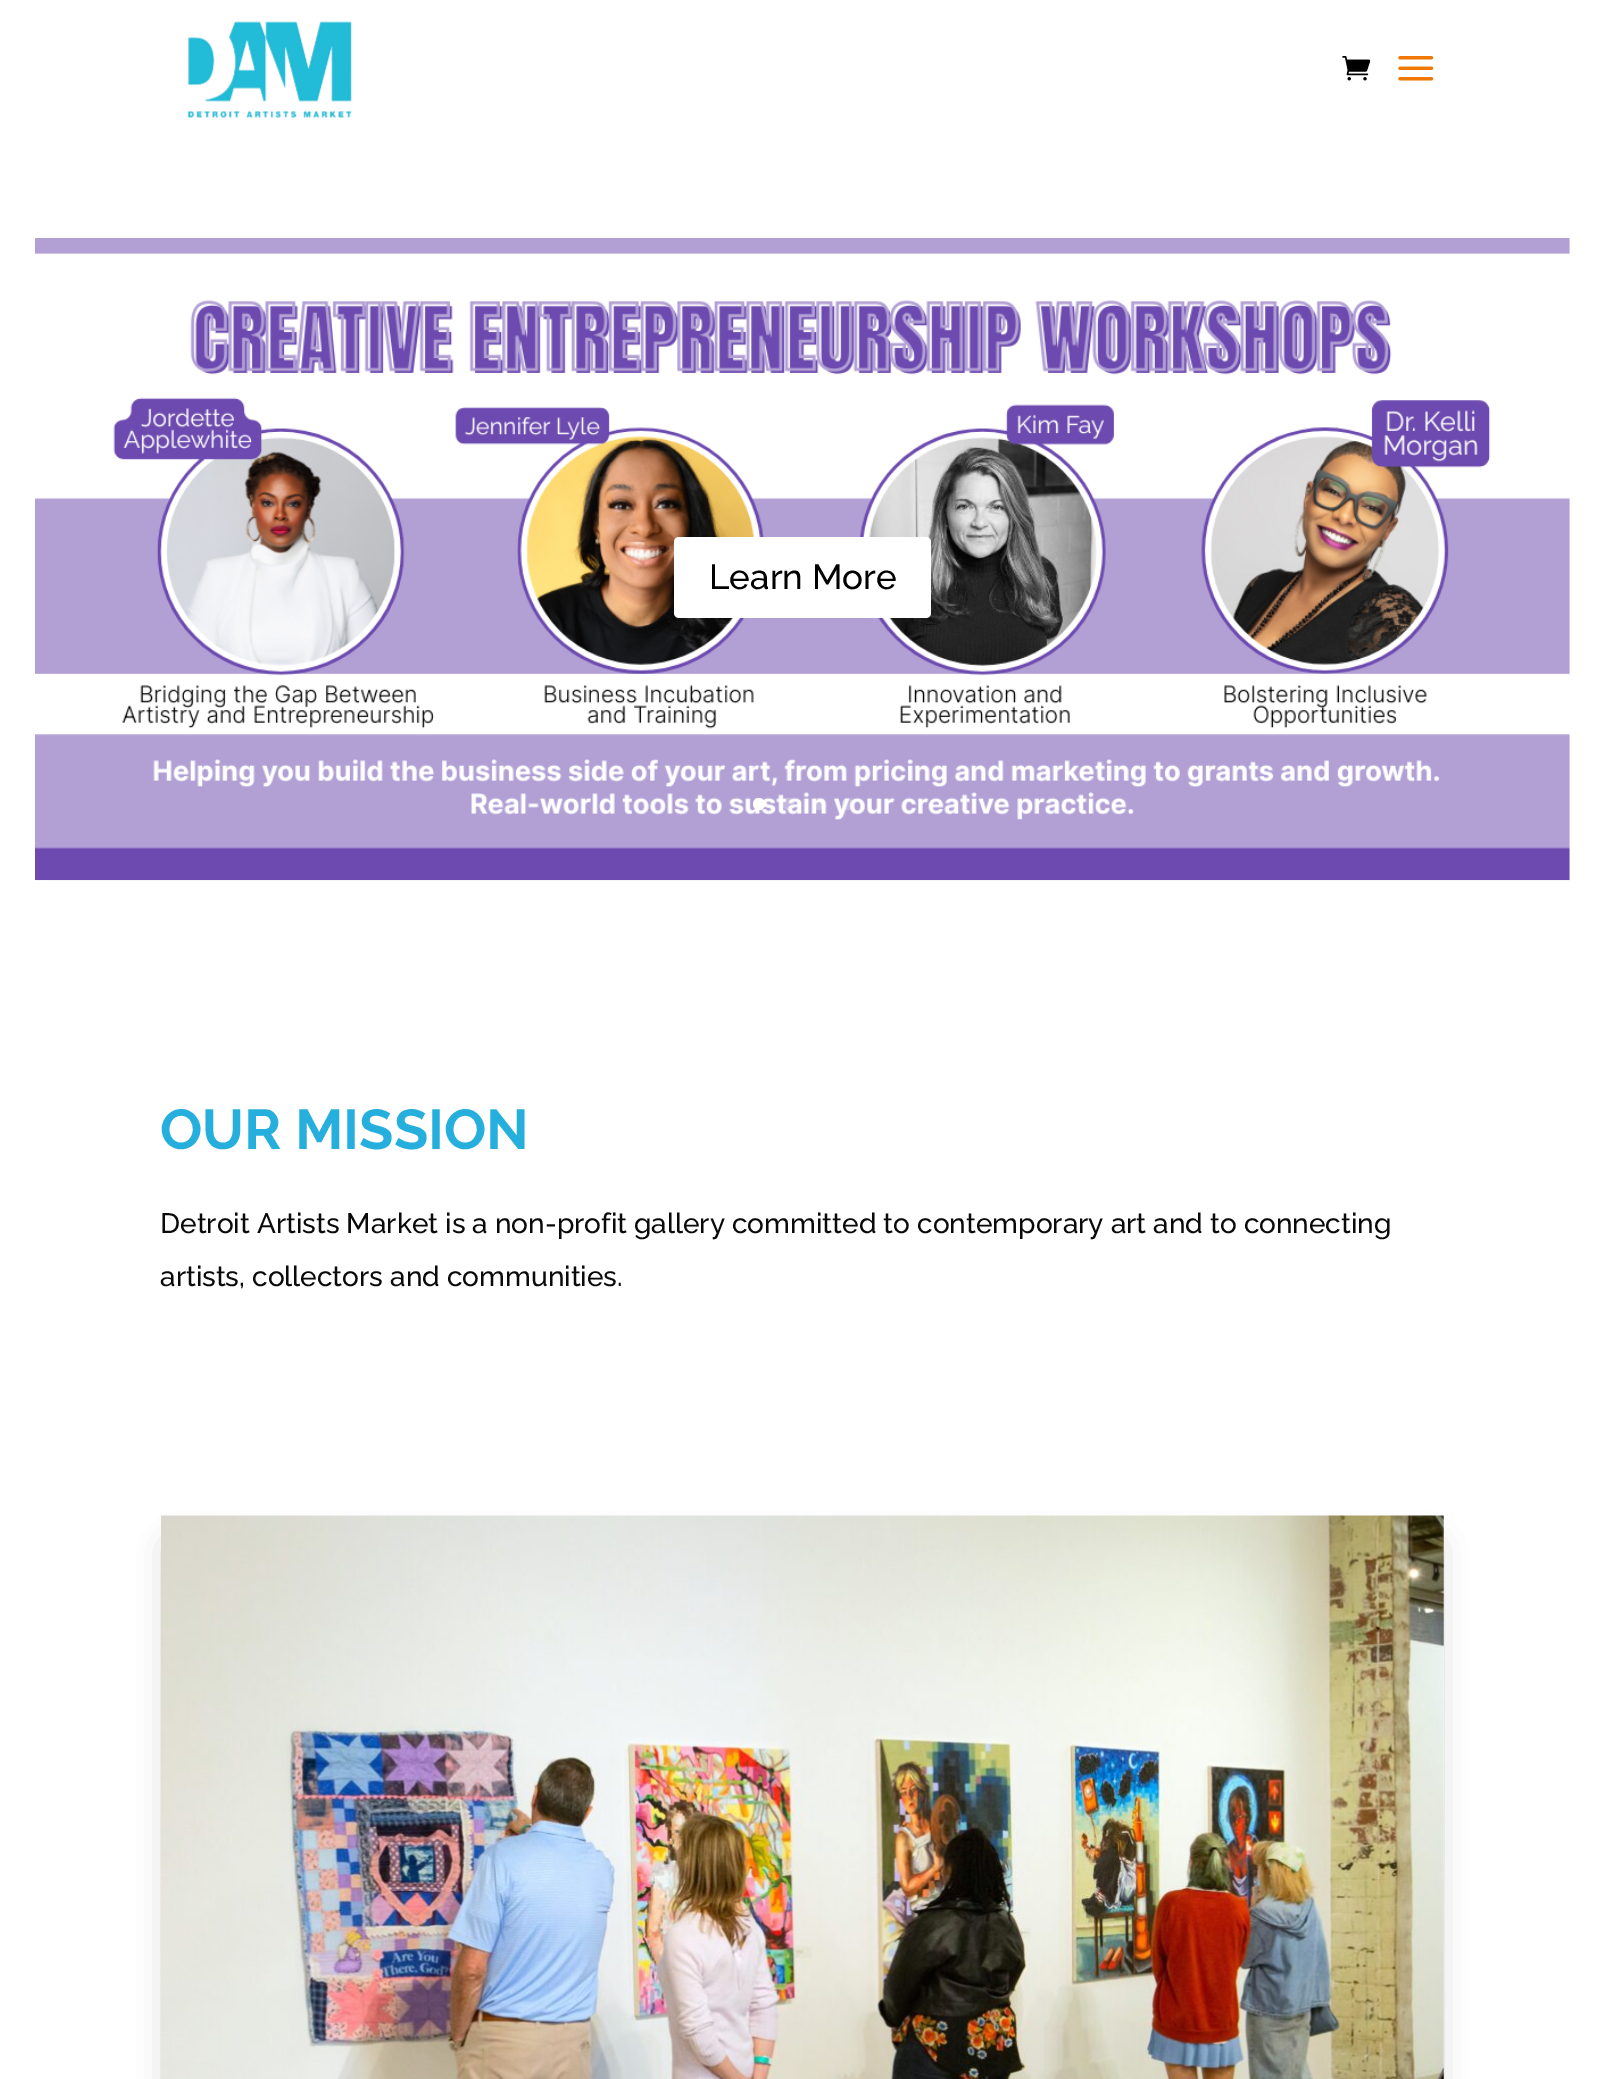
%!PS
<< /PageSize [1604 2079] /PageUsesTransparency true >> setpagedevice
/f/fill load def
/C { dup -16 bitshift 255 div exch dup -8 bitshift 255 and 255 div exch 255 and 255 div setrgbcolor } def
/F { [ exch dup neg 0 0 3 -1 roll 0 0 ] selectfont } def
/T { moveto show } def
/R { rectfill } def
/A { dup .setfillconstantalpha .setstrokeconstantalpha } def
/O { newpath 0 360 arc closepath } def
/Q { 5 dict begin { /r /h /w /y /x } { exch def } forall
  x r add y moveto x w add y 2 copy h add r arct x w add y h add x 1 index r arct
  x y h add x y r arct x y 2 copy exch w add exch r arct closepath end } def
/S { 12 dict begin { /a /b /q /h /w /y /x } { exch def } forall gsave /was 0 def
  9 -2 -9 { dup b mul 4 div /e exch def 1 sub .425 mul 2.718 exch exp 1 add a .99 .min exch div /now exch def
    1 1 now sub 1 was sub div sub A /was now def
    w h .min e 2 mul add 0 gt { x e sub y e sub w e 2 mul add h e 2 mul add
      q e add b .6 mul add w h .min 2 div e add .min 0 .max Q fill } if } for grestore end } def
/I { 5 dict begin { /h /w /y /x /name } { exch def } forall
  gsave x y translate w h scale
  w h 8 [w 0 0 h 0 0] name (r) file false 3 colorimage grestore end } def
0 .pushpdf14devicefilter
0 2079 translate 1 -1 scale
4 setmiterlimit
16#FFFFFF C
0 0 1604 2079 R
(1.rgb) 188 21 164 97 I
(2.rgb) 1342 56 29 25 I
(3.rgb) 1398 56 36 25 I
(4.rgb) 35 238 1535 643 I
674 537 257 81 5 Q f
/Raleway-Medium 35 F
16#000000 C
(Learn More) 709 589 T
16#FFFFFF C
759 804 6 O f
0.25 A
782 798 13 12 6 Q f
818 804 6 O f
848 804 6 O f
/Raleway-Bold 56 F
1 A
16#26AFDC C
(OUR MISSION) 160 1149 T
/Raleway-Medium 28 F
16#0A0A0A C
(Detroit Artists Market is a non-profit gallery committed to contemporary art and to connecting) 160 1233 T
(artists, collectors and communities.) 160 1286 T
16#000000 C
172 1547 1261 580 0 16 .3 S
(5.rgb) 161 1515 1283 564 I
.poppdf14devicefilter showpage
